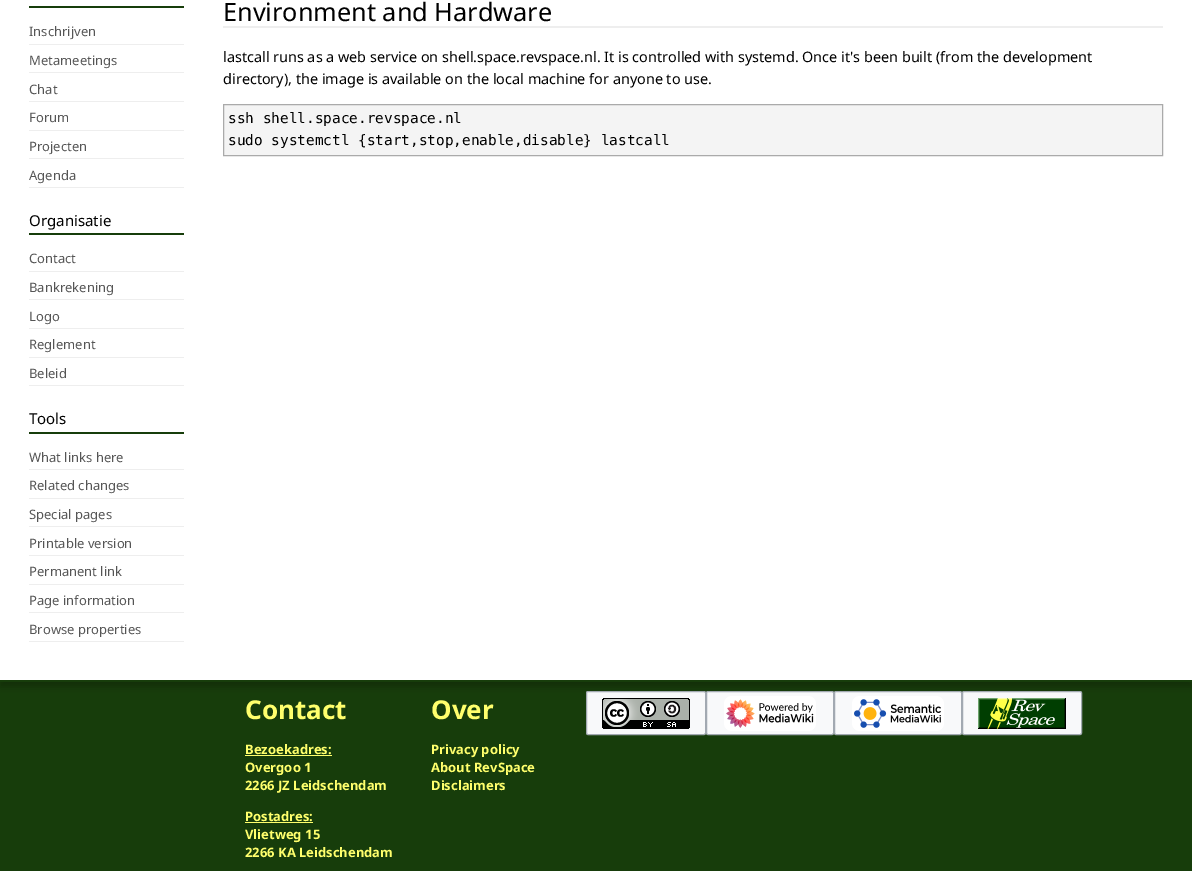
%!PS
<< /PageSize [1192 871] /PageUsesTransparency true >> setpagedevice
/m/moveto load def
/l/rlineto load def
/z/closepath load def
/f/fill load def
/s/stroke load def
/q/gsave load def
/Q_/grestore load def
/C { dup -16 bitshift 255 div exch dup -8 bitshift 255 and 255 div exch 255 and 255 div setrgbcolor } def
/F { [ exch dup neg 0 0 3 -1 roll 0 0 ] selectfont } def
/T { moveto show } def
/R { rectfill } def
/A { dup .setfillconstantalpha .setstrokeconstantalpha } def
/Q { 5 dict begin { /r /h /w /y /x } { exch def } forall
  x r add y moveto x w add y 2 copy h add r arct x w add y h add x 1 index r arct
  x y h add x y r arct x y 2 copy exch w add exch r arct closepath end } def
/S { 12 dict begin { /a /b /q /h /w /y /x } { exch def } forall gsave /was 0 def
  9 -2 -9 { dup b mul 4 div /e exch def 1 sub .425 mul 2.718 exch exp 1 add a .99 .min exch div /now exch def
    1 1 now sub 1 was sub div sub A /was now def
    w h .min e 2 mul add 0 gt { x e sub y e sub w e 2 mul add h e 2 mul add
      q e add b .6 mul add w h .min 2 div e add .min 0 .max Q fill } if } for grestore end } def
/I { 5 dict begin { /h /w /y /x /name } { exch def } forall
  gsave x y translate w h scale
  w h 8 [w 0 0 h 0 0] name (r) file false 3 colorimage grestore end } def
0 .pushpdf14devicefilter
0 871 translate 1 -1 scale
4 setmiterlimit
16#173D0B C
0 0 1192 871 R
16#000000 C
0 -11 1192 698 0 3.5 .25 S
16#FFFFFF C
0 0 1192 680 R
16#173D0B C
29 6 155 2 R
16#EEEEEE C
29 44 155 1 R
/NotoSans-Regular 13 F
16#555555 C
(Inschrijven) 29 36 T
16#EEEEEE C
29 72 155 1 R
16#555555 C
(Metameetings) 29 65 T
16#EEEEEE C
29 101 155 1 R
16#555555 C
(Chat) 29 94 T
16#EEEEEE C
29 130 155 1 R
16#555555 C
(Forum) 29 122 T
16#EEEEEE C
29 158 155 1 R
16#555555 C
(Projecten) 29 151 T
16#EEEEEE C
29 187 155 1 R
16#555555 C
(Agenda) 29 180 T
16#173D0B C
29 233 155 2 R
/NotoSans-Regular 15 F
16#000000 C
(Organisatie) 29 226 T
16#EEEEEE C
29 271 155 1 R
/NotoSans-Regular 13 F
16#555555 C
(Contact) 29 263 T
16#EEEEEE C
29 299 155 1 R
16#555555 C
(Bankrekening) 29 292 T
16#EEEEEE C
29 328 155 1 R
16#555555 C
(Logo) 29 321 T
16#EEEEEE C
29 357 155 1 R
16#555555 C
(Reglement) 29 349 T
16#EEEEEE C
29 385 155 1 R
16#555555 C
(Beleid) 29 378 T
16#173D0B C
29 432 155 2 R
/NotoSans-Regular 15 F
16#000000 C
(Tools) 29 424 T
16#EEEEEE C
29 469 155 1 R
/NotoSans-Regular 13 F
16#555555 C
(What links here) 29 462 T
16#EEEEEE C
29 498 155 1 R
16#555555 C
(Related changes) 29 490 T
16#EEEEEE C
29 526 155 1 R
16#555555 C
(Special pages) 29 519 T
16#EEEEEE C
29 555 155 1 R
16#555555 C
(Printable version) 29 548 T
16#EEEEEE C
29 584 155 1 R
16#555555 C
(Permanent link) 29 576 T
16#EEEEEE C
29 612 155 1 R
16#555555 C
(Page information) 29 605 T
16#EEEEEE C
29 641 155 1 R
16#555555 C
(Browse properties) 29 634 T
/NotoSans-Regular 25.25 F
16#000000 C
(Environment and Hardware) 223 21 T
16#EEEEEE C
223 26 940 2 R
/NotoSans-Regular 14.4 F
16#000000 C
(lastcall runs as a web service on shell.space.revspace.nl. It is controlled with systemd. Once it's been built \(from the development) 223 62 T
(directory\), the image is available on the local machine for anyone to use.) 223 84 T
16#F4F4F4 C
223.5 104.5 m 939 0 l 0 51 l -939 0 l z q f Q_
16#AAAAAA C
s
/DejaVuSansMono-Regular 14.4 F
16#000000 C
(ssh shell.space.revspace.nl) 228 123 T
(sudo systemctl {start,stop,enable,disable} lastcall) 228 145 T
16#173D0B C
0 680 1192 2 R
/NotoSans-Bold 26 F
16#FFFF6C C
(Contact) 245 719 T
/NotoSans-Bold 13 F
(Bezoekadres:) 245 754 T
245 755 87 1 R
(Overgoo 1) 245 772 T
(2266 JZ Leidschendam) 245 790 T
(Postadres:) 245 821 T
245 822 68 1 R
(Vlietweg 15) 245 839 T
(2266 KA Leidschendam) 245 857 T
/NotoSans-Bold 26 F
(Over) 431 719 T
/NotoSans-Bold 13 F
(Privacy policy) 431 754 T
(About RevSpace) 431 772 T
(Disclaimers) 431 790 T
16#F8F9FA C
586.5 691.5 119 43 1.5 Q q f Q_
16#A2A9B1 C
s
(1.rgb) 602 698 88 31 I
16#F8F9FA C
706.5 691.5 127 43 1.5 Q q f Q_
16#A2A9B1 C
s
16#FFFFFF C
724 696 92 35 8 Q f
(2.rgb) 726 699 88 29 I
16#F8F9FA C
834.5 691.5 127 43 1.5 Q q f Q_
16#A2A9B1 C
s
16#FFFFFF C
852 696 92 35 8 Q f
(3.rgb) 854 699 87 29 I
16#F8F9FA C
962.5 691.5 119 43 1.5 Q q f Q_
16#A2A9B1 C
s
(4.rgb) 978 698 88 31 I
.poppdf14devicefilter showpage
